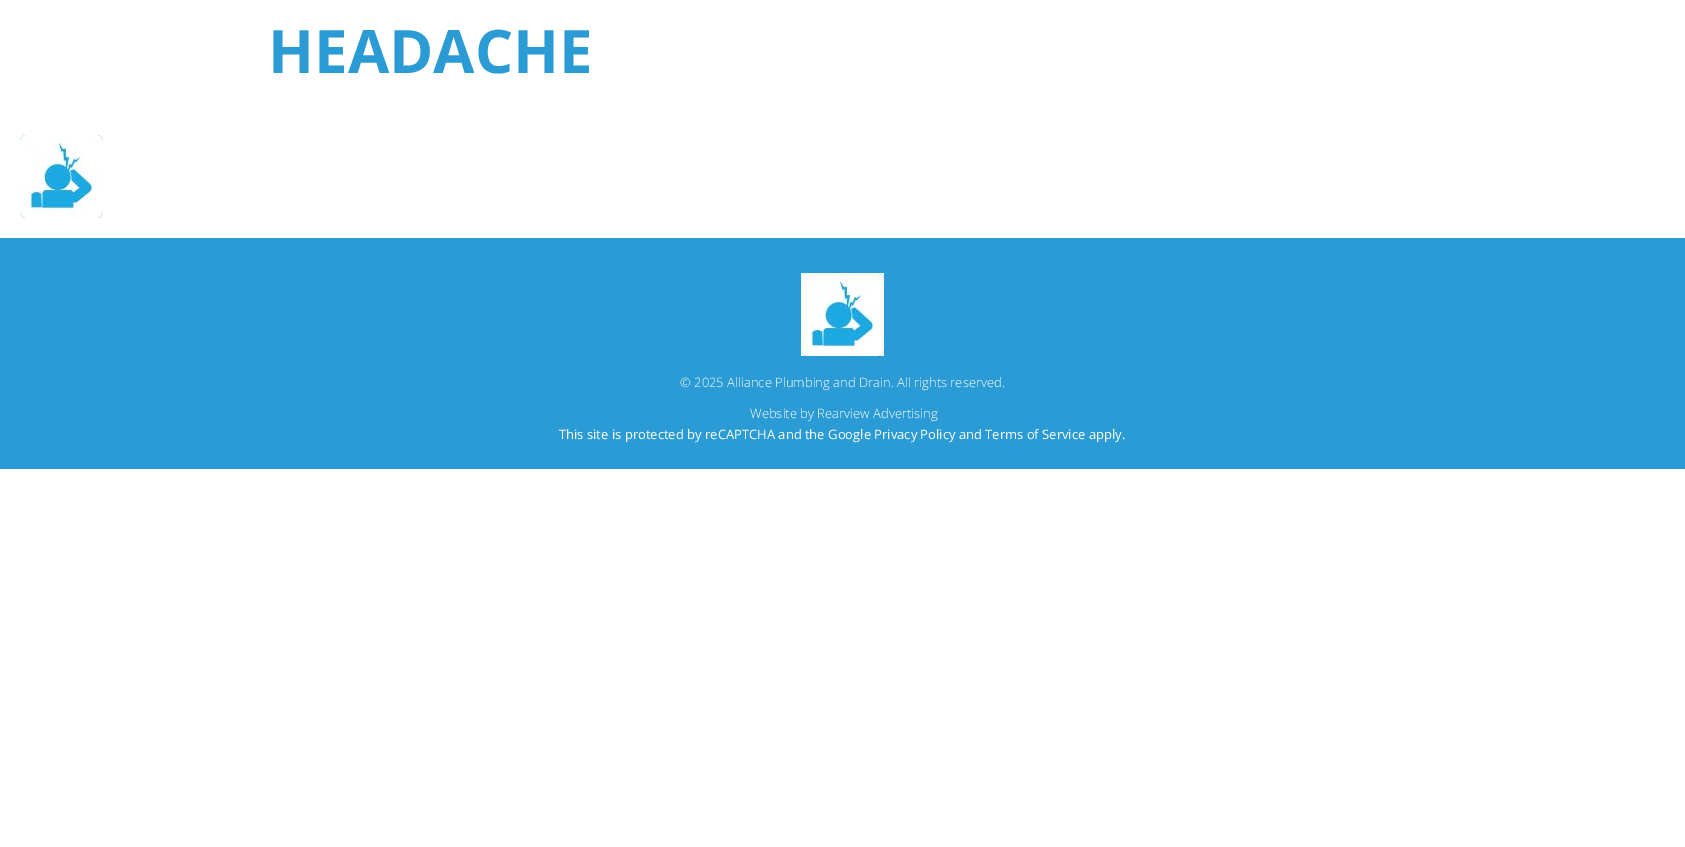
%!PS
<< /PageSize [1685 847] >> setpagedevice
/C { dup -16 bitshift 255 div exch dup -8 bitshift 255 and 255 div exch 255 and 255 div setrgbcolor } def
/F { [ exch dup neg 0 0 3 -1 roll 0 0 ] selectfont } def
/T { moveto show } def
/R { rectfill } def
/I { 5 dict begin { /h /w /y /x /name } { exch def } forall
  gsave x y translate w h scale
  w h 8 [w 0 0 h 0 0] name (r) file false 3 colorimage grestore end } def
0 847 translate 1 -1 scale
4 setmiterlimit
16#FFFFFF C
0 0 1685 847 R
/OpenSans-Bold 60 F
16#2A9BD4 C
(HEADACHE) 268 73 T
(1.rgb) 20 135 83 83 I
0 238 1685 231 R
(1.rgb) 801 273 83 83 I
/OpenSans-Light 13 F
16#FFFFFF C
(© 2025 Alliance Plumbing and Drain. All rights reserved.) 680 387 T
(Website by Rearview Advertising) 750 418 T
/OpenSans-Regular 13 F
(This site is protected by reCAPTCHA and the Google Privacy Policy and Terms of Service apply.) 559 439 T
showpage
